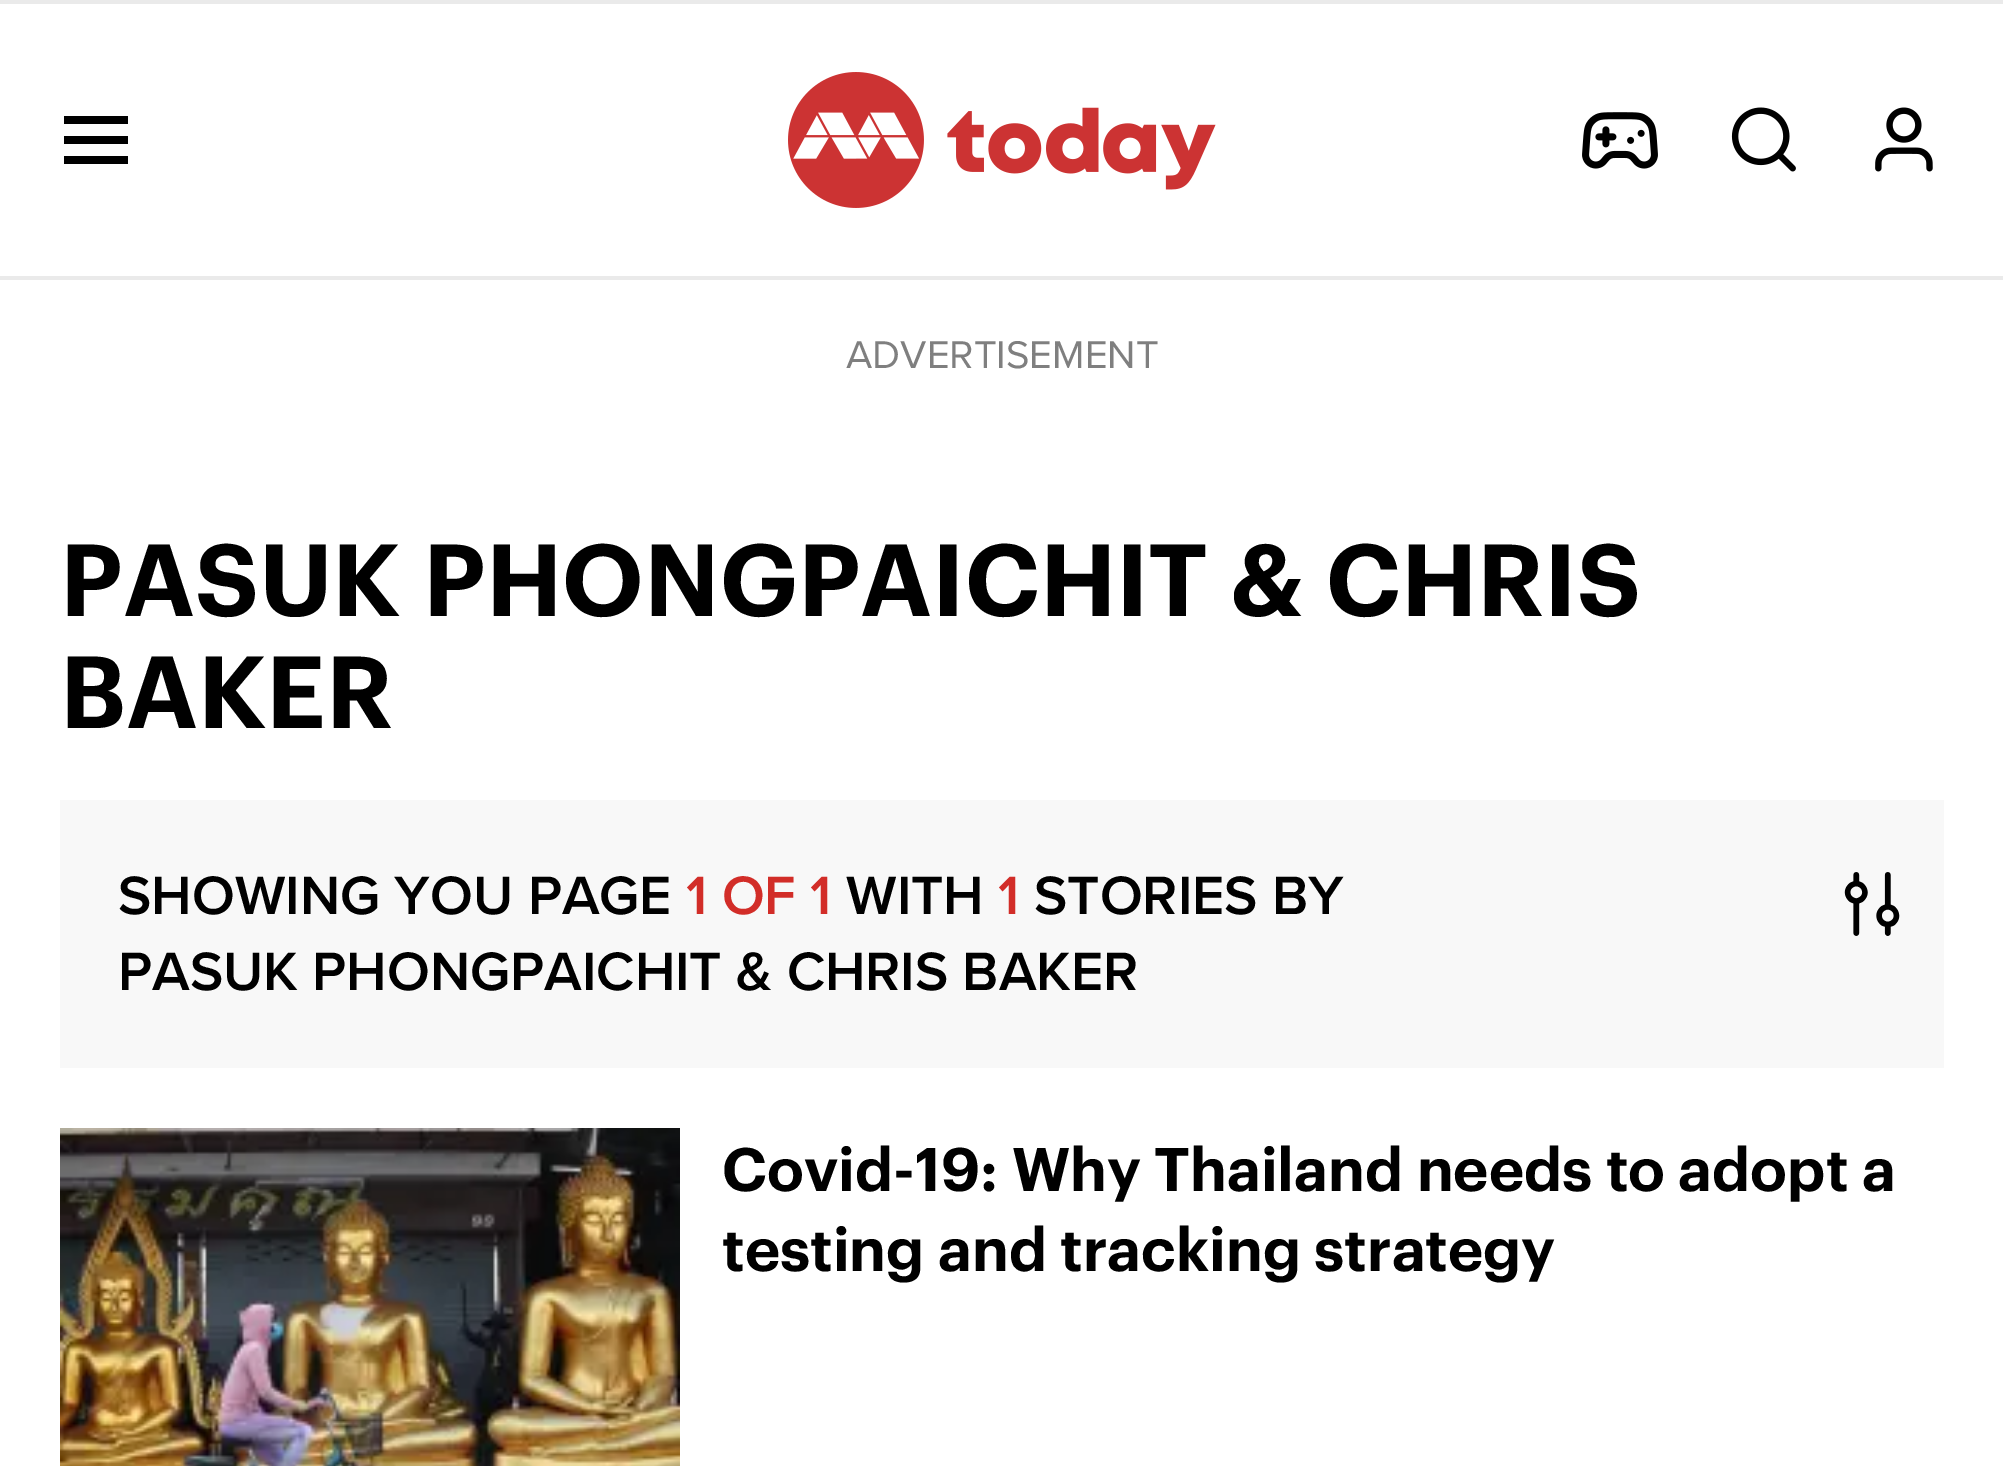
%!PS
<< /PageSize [2003 1466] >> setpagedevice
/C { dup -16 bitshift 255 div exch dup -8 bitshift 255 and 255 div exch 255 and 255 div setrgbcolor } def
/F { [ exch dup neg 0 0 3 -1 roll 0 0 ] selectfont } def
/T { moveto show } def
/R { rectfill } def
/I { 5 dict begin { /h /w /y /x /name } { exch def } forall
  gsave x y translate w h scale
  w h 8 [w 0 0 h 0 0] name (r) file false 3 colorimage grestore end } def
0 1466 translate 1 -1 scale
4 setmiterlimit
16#FFFFFF C
0 0 2003 1466 R
16#EAEAEA C
0 0 2003 4 R
0 276 2003 4 R
(1.rgb) 64 116 64 48 I
(2.rgb) 788 72 428 136 I
(3.rgb) 1582 112 76 57 I
(4.rgb) 1731 107 65 65 I
(5.rgb) 1875 107 58 65 I
/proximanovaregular-Regular 40 F
16#7F7F7F C
(ADVERTISEMENT) 846 368 T
/Graphik-SemiBold 100 F
16#000000 C
(PASUK PHONGPAICHIT & CHRIS) 60 616 T
(BAKER) 60 728 T
16#F8F8F8 C
60 800 1884 268 R
/ProximaNova-SemiBold 56 F
16#000000 C
(SHOWING YOU PAGE) 118 914 T
16#D22D28 C
(1 OF 1) 686 914 T
16#000000 C
(WITH) 846 914 T
16#D22D28 C
(1) 998 914 T
16#000000 C
(STORIES BY) 1034 914 T
(PASUK PHONGPAICHIT & CHRIS BAKER) 118 990 T
(6.rgb) 1844 872 56 64 I
(7.rgb) 60 1128 620 338 I
/Graphik-SemiBold 60 F
(Covid-19: Why Thailand needs to adopt a) 722 1191 T
(testing and tracking strategy) 722 1271 T
showpage
